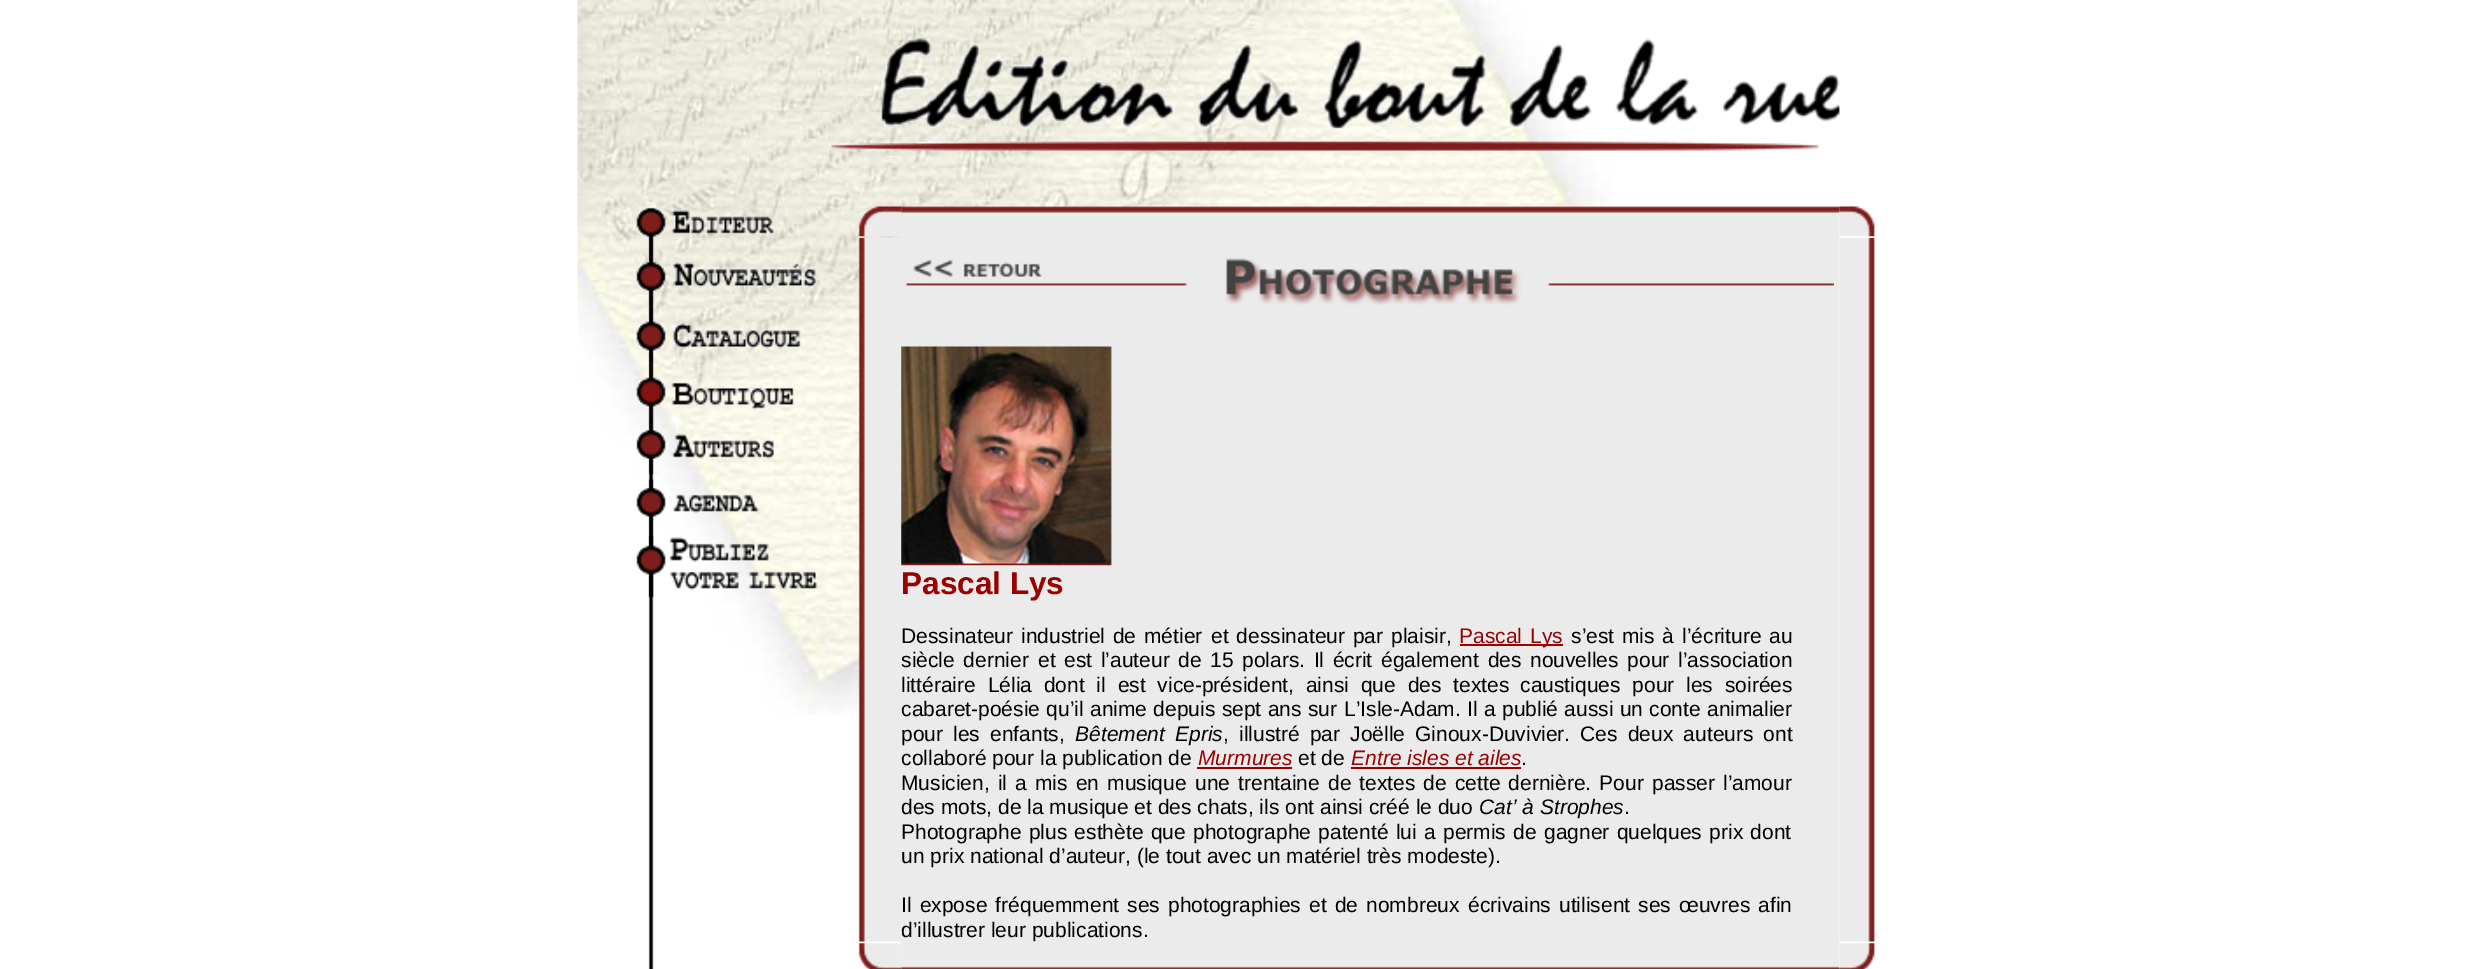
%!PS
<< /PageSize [2485 969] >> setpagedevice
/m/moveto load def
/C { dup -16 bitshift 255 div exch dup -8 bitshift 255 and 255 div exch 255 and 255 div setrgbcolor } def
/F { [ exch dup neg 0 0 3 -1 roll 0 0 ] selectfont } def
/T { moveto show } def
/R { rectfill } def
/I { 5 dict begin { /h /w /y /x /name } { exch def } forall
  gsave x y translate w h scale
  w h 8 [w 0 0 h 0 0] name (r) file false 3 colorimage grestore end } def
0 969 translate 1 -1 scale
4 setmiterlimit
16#FFFFFF C
0 0 2485 969 R
(1.rgb) 577 0 1036 715 I
(2.rgb) 830 38 1010 113 I
(3.rgb) 648 201 6 768 I
(4.rgb) 636 201 138 50 I
(5.rgb) 636 250 180 57 I
(6.rgb) 636 306 165 57 I
(7.rgb) 636 362 158 57 I
(8.rgb) 636 418 138 57 I
(10.rgb) 648 535 6 62 I
(9.rgb) 636 479 123 57 I
(11.rgb) 636 535 182 62 I
(12.rgb) 858 206 44 31 I
(13.rgb) 901 206 939 32 I
(14.rgb) 1839 206 36 31 I
(15.rgb) 858 238 43 704 I
16#EBEBEB C
901 238 938 704 R
(16.rgb) 906 258 928 47 I
(17.rgb) 901 346 211 220 I
/LiberationSans-Bold 31.5 F
16#990000 C
(Pascal Lys) 901 594 T
/LiberationSans-Regular 21 F
16#000000 C
901 643 m 2 0 32 (Dessinateur industriel de métier) widthshow
1211 643 m 2 0 32 (et dessinateur par plaisir,) widthshow
16#990000 C
1460 644 103 2 R
1459 643 m 2 0 32 (Pascal Lys) widthshow
16#000000 C
1571 643 m 2 0 32 (s’est mis à l’écriture au) widthshow
901 667 m 2.75 0 32 (siècle dernier) widthshow
1038 667 m 2.75 0 32 (et est l’auteur de 15 polars. Il écrit également des nouvelles pour) widthshow
(l’association) 1678 667 T
901 692 m 6 0 32 (littéraire Lélia dont il est vice-président, ainsi que des textes) widthshow
1520 692 m 6 0 32 (caustiques pour les soirées) widthshow
901 716 m .5 0 32 (cabaret-poésie qu’il anime depuis sept ans sur) widthshow
1344 716 m .5 0 32 (L’Isle-Adam. Il a publié aussi un conte animalier) widthshow
901 741 m 4.25 0 32 (pour les enfants,) widthshow
/LiberationSans-Italic 21 F
(Bêtement) 1075 741 T
(Epris) 1175 741 T
/LiberationSans-Regular 21 F
1223 741 m 4.25 0 32 (, illustré par Joëlle Ginoux-Duvivier. Ces deux auteurs ont) widthshow
(collaboré pour la publication de) 901 765 T
/LiberationSans-Italic 21 F
16#990000 C
(Murmures) 1198 765 T
1197 767 95 2 R
/LiberationSans-Regular 21 F
16#000000 C
(et de) 1298 765 T
/LiberationSans-Italic 21 F
16#990000 C
(Entre isles et ailes) 1351 765 T
1351 767 170 2 R
/LiberationSans-Regular 21 F
16#000000 C
(.) 1521 765 T
901 790 m 2.25 0 32 (Musicien, il a mis en musique) widthshow
1195 790 m 2.25 0 32 (une trentaine de textes de cette dernière. Pour passer l’amour) widthshow
(des mots, de la musique et des chats, ils ont ainsi créé le duo) 901 814 T
/LiberationSans-Italic 21 F
(Cat’ à Strophes) 1479 814 T
/LiberationSans-Regular 21 F
(.) 1624 814 T
901 839 m 1.5 0 32 (Photographe plus esthète que) widthshow
1193 839 m 1.5 0 32 (photographe patenté lui a permis de gagner quelques prix dont) widthshow
(un prix national d’auteur, \(le tout avec un matériel très modeste\).) 901 863 T
901 912 m 2.25 0 32 (Il expose fréquemment ses photographies et de nombreux) widthshow
1468 912 m 2.25 0 32 (écrivains utilisent ses œuvres afin) widthshow
(d’illustrer leur publications.) 901 937 T
(18.rgb) 1839 238 36 704 I
(19.rgb) 858 943 44 26 I
(20.rgb) 901 941 939 28 I
(21.rgb) 1839 943 36 26 I
showpage
